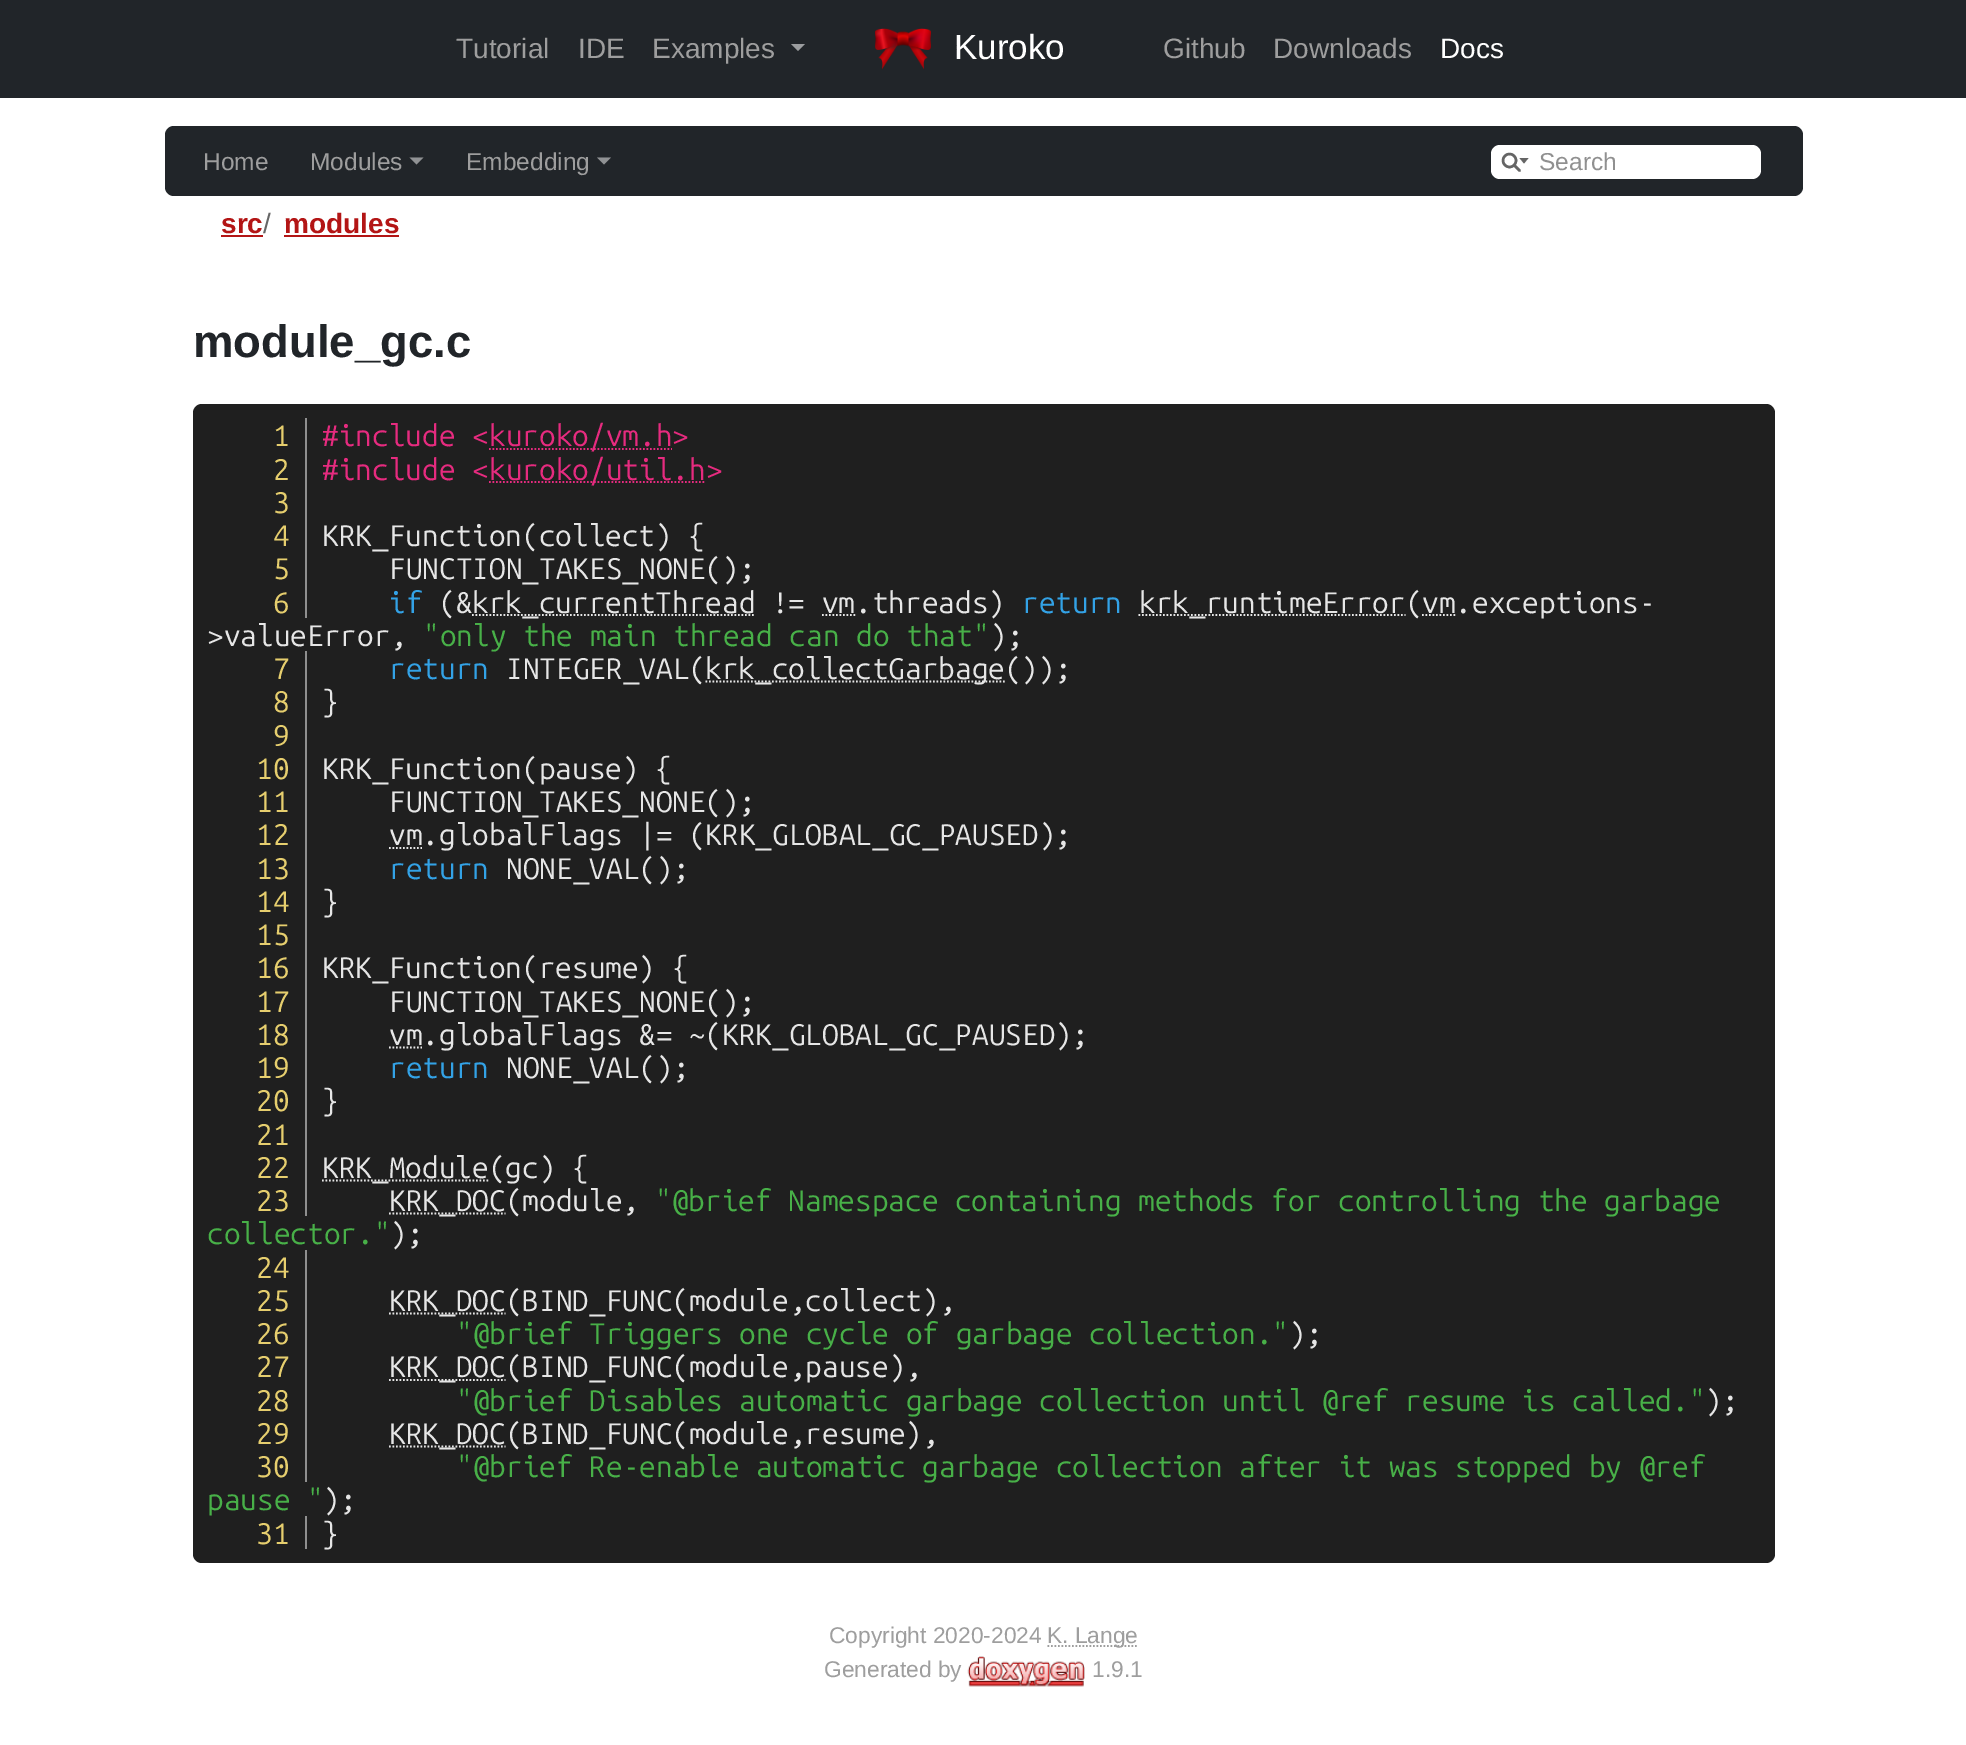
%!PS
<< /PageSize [1966 1745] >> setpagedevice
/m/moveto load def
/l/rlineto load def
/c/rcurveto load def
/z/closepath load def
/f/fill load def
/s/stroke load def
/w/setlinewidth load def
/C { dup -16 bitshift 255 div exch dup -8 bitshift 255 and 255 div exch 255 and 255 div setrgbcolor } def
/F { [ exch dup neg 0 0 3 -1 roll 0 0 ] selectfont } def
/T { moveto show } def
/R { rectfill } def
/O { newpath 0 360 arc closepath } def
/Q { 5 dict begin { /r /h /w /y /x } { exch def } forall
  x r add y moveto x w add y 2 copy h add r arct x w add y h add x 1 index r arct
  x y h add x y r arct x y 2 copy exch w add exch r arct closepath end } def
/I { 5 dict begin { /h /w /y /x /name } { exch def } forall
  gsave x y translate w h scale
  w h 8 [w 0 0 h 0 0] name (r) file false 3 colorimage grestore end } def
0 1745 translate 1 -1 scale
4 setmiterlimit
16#FFFFFF C
0 0 1966 1745 R
16#212529 C
0 0 1966 98 R
/LiberationSans-Regular 28 F
16#9E9E9E C
(Tutorial) 456 58 T
(IDE) 578 58 T
(Examples) 652 58 T
16#9B9D9F C
791 44 m 14 0 l -7 7 l z f
(1.rgb) 875 28 56 42 I
/LiberationSans-Regular 35 F
16#FFFFFF C
(Kuroko) 954 59 T
/LiberationSans-Regular 28 F
16#9E9E9E C
(Github) 1163 58 T
(Downloads) 1273 58 T
16#FFFFFF C
(Docs) 1440 58 T
16#212529 C
165 126 1638 70 9 Q f
/LiberationSans-Regular 24.5 F
16#9E9E9E C
(Home) 203 170 T
(Modules) 310 170 T
16#909294 C
409.5 157.5 m 14 0 l -7 7 l z f
16#9E9E9E C
(Embedding) 466 170 T
16#909294 C
597 157.5 m 14 0 l -7 7 l z f
16#FFFFFF C
1500 145 m 226 0 l 0 34 l -226 0 l -5 0 -9 -4 -9 -9 c 0 -16 l 0 -5 4 -9 9 -9 c z f
16#656565 C
2.5 w
1509.5 160.5 6.5 O s
1519.5 158 m 4.5 5.5 l 4.5 -5.5 l z f
1 setlinecap
1514.5 165.5 m 5 5 l s
16#909090 C
(Search) 1539 170 T
16#FFFFFF C
1726 145 m 26 0 l 5 0 9 4 9 9 c 0 16 l 0 5 -4 9 -9 9 c -26 0 l z f
/LiberationSans-Bold 28 F
16#B31515 C
(src) 221 233 T
221 235 42 2 R
/LiberationSans-Regular 28 F
16#666666 C
(/) 263 233 T
/LiberationSans-Bold 28 F
16#B31515 C
(modules) 284 233 T
284 235 115 2 R
/LiberationSans-Bold 45.5 F
16#212529 C
(module_gc.c) 193 357 T
16#1F1F1F C
193 404 1582 1159 9 Q f
/UbuntuMono-Regular 29.75 F
16#E6CE6E C
(1) 273 446 T
16#8F8F8F C
305 418 2 200 R
16#E62B7F C
(#include <) 322 446 T
1.8 w
0 setlinecap
[1.75 1.75] 0 setdash
489 449 m 183 0 l s
(kuroko/vm.h>) 489 446 T
16#E6CE6E C
(2) 273 480 T
16#E62B7F C
(#include <) 322 480 T
489 482 m 216.5 0 l s
(kuroko/util.h>) 489 480 T
16#E6CE6E C
(3) 273 513 T
(4) 273 546 T
16#E6E6E6 C
(KRK_Function\(collect\) {) 322 546 T
16#E6CE6E C
(5) 273 579 T
16#E6E6E6 C
(FUNCTION_TAKES_NONE\(\);) 389 579 T
16#E6CE6E C
(6) 273 613 T
16#33A2E6 C
(if) 389 613 T
16#E6E6E6 C
(\(&) 439 613 T
472 615 m 283.5 0 l s
(krk_currentThread != vm.threads\)) 472 613 T
16#33A2E6 C
(return) 1022 613 T
16#E6E6E6 C
1138.5 615 m 267 0 l s
(krk_runtimeError\(vm.exceptions-) 1139 613 T
822 615 m 33.5 0 l s
1422 615 m 33.5 0 l s
(>valueError,) 207 646 T
16#48B048 C
("only the main thread can do that") 423 646 T
16#E6E6E6 C
(\);) 990 646 T
16#E6CE6E C
(7) 273 679 T
16#8F8F8F C
305 651 2 565 R
16#33A2E6 C
(return) 389 679 T
16#E6E6E6 C
(INTEGER_VAL\() 506 679 T
705.5 681.5 m 300 0 l s
(krk_collectGarbage\(\)\);) 705 679 T
16#E6CE6E C
(8) 273 712 T
16#E6E6E6 C
(}) 322 712 T
16#E6CE6E C
(9) 273 746 T
(10) 256 779 T
16#E6E6E6 C
(KRK_Function\(pause\) {) 322 779 T
16#E6CE6E C
(11) 256 812 T
16#E6E6E6 C
(FUNCTION_TAKES_NONE\(\);) 389 812 T
16#E6CE6E C
(12) 256 845 T
16#E6E6E6 C
389 848 m 33 0 l s
(vm.globalFlags |= \(KRK_GLOBAL_GC_PAUSED\);) 389 845 T
16#E6CE6E C
(13) 256 879 T
16#33A2E6 C
(return) 389 879 T
16#E6E6E6 C
(NONE_VAL\(\);) 506 879 T
16#E6CE6E C
(14) 256 912 T
16#E6E6E6 C
(}) 322 912 T
16#E6CE6E C
(15) 256 945 T
(16) 256 978 T
16#E6E6E6 C
(KRK_Function\(resume\) {) 322 978 T
16#E6CE6E C
(17) 256 1012 T
16#E6E6E6 C
(FUNCTION_TAKES_NONE\(\);) 389 1012 T
16#E6CE6E C
(18) 256 1045 T
16#E6E6E6 C
389 1047.5 m 33 0 l s
(vm.globalFlags &= ~\(KRK_GLOBAL_GC_PAUSED\);) 389 1045 T
16#E6CE6E C
(19) 256 1078 T
16#33A2E6 C
(return) 389 1078 T
16#E6E6E6 C
(NONE_VAL\(\);) 506 1078 T
16#E6CE6E C
(20) 256 1111 T
16#E6E6E6 C
(}) 322 1111 T
16#E6CE6E C
(21) 256 1145 T
(22) 256 1178 T
16#E6E6E6 C
322 1180.5 m 167 0 l s
(KRK_Module\(gc\) {) 322 1178 T
16#E6CE6E C
(23) 256 1211 T
16#E6E6E6 C
389 1213.5 m 116.5 0 l s
(KRK_DOC\(module,) 389 1211 T
16#48B048 C
("@brief Namespace containing methods for controlling the garbage) 655 1211 T
(collector.") 207 1244 T
16#E6E6E6 C
(\);) 390 1244 T
16#E6CE6E C
(24) 256 1278 T
16#8F8F8F C
305 1250 2 232 R
16#E6CE6E C
(25) 256 1311 T
16#E6E6E6 C
389 1313.5 m 116.5 0 l s
(KRK_DOC\(BIND_FUNC\(module,collect\),) 389 1311 T
16#E6CE6E C
(26) 256 1344 T
16#48B048 C
("@brief Triggers one cycle of garbage collection.") 456 1344 T
16#E6E6E6 C
(\);) 1289 1344 T
16#E6CE6E C
(27) 256 1377 T
16#E6E6E6 C
389 1380 m 116.5 0 l s
(KRK_DOC\(BIND_FUNC\(module,pause\),) 389 1377 T
16#E6CE6E C
(28) 256 1411 T
16#48B048 C
("@brief Disables automatic garbage collection until @ref resume is called.") 456 1411 T
16#E6E6E6 C
(\);) 1705 1411 T
16#E6CE6E C
(29) 256 1444 T
16#E6E6E6 C
389 1446.5 m 116.5 0 l s
(KRK_DOC\(BIND_FUNC\(module,resume\),) 389 1444 T
16#E6CE6E C
(30) 256 1477 T
16#48B048 C
("@brief Re-enable automatic garbage collection after it was stopped by @ref) 456 1477 T
(pause ") 207 1510 T
16#E6E6E6 C
(\);) 323 1510 T
16#E6CE6E C
(31) 256 1544 T
16#8F8F8F C
305 1516 2 33 R
16#E6E6E6 C
(}) 322 1544 T
/LiberationSans-Regular 22.75 F
16#9E9E9E C
(Copyright 2020-2024) 829 1643 T
1047.5 1646 m 91 0 l s
(K. Lange) 1047 1643 T
(Generated by) 824 1677 T
(2.rgb) 967 1656 118 31 I
(1.9.1) 1092 1677 T
showpage
